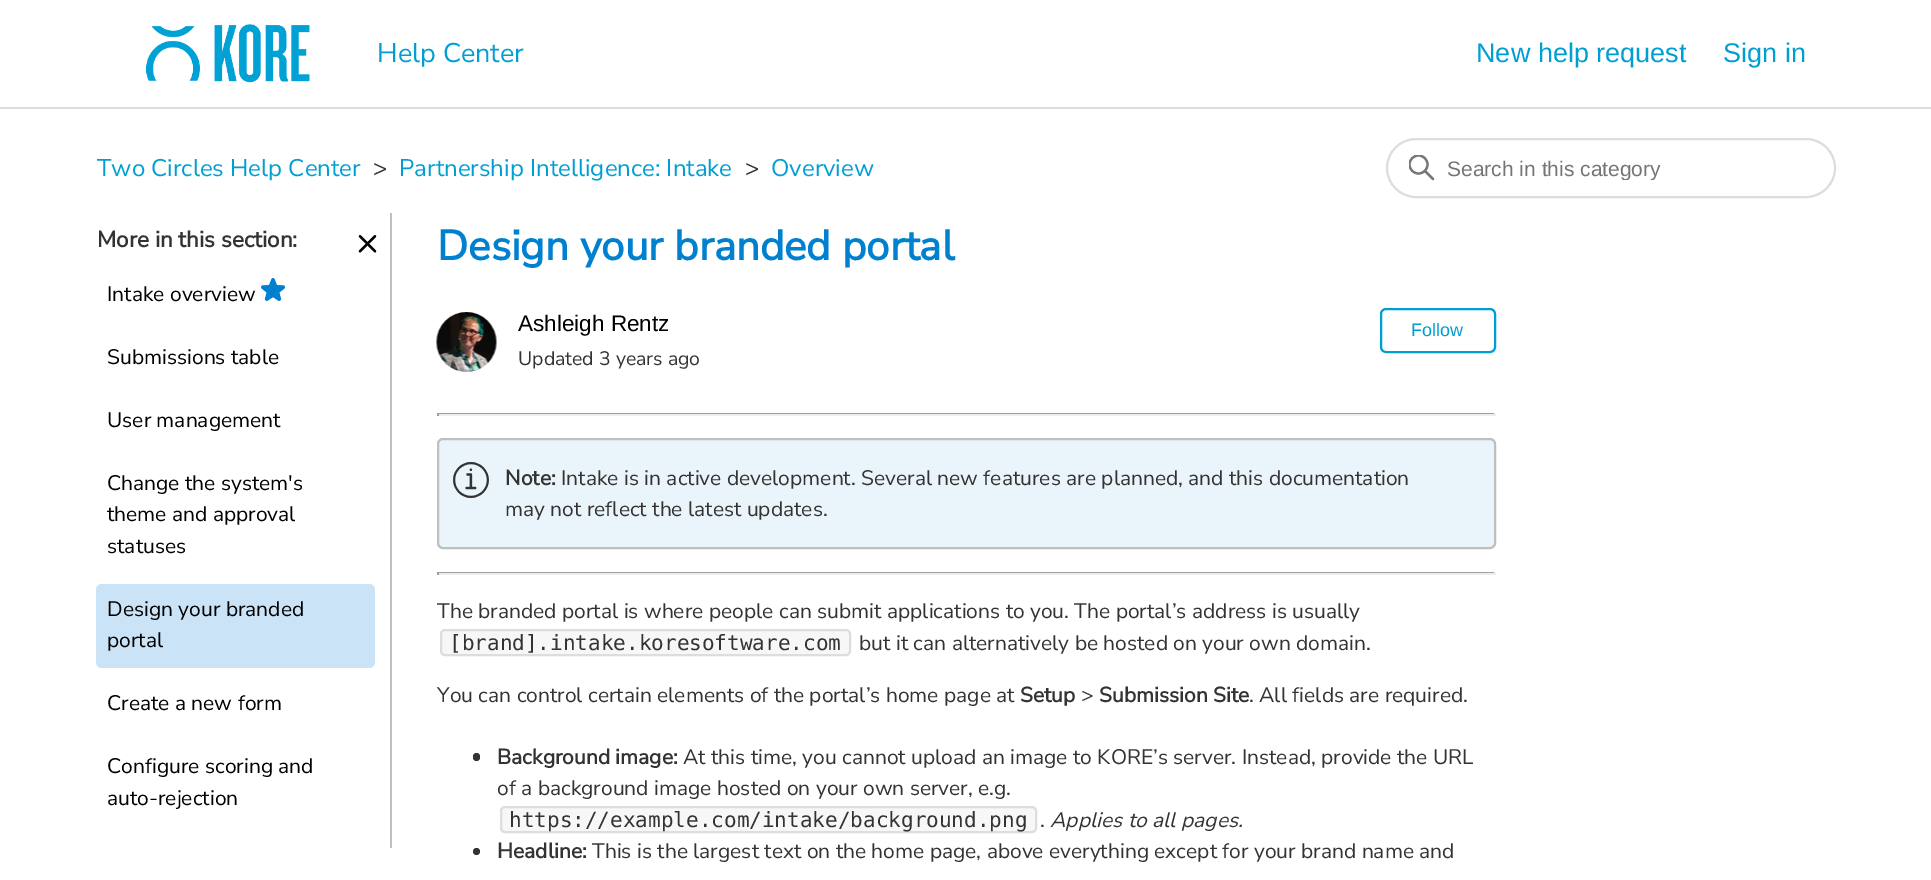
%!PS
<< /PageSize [1931 880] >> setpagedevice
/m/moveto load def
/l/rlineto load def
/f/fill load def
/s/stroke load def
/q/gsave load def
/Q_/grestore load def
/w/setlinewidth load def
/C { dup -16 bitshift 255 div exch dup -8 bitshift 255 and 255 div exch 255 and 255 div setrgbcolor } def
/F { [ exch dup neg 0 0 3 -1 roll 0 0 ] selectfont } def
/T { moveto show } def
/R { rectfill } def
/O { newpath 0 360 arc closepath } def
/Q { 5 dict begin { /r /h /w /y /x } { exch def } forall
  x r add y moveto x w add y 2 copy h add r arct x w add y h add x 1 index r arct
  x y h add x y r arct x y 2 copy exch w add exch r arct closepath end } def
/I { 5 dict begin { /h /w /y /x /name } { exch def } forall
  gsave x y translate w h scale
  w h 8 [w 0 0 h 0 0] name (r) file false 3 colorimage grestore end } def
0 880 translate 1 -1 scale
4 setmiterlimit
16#FFFFFF C
0 0 1931 880 R
(1.rgb) 145 24 165 59 I
/NunitoSans-ExtraLight 27 F
16#009FD3 C
(Help Center) 377 62 T
/LiberationSans-Regular 27 F
(New help request) 1476 62 T
(Sign in) 1723 62 T
16#DDDDDD C
0 107 1931 2 R
/NunitoSans-ExtraLight 24 F
16#009FD3 C
(Two Circles Help Center) 97 176 T
16#333333 C
(>) 373 176 T
16#009FD3 C
(Partnership Intelligence: Intake) 399 176 T
16#333333 C
(>) 745 176 T
16#009FD3 C
(Overview) 771 176 T
16#DDDDDD C
2 w
1387 139 448 58 29 Q s
q
1409 155 27 27 rectclip
16#777777 C
2.2 w
1418.5 164.5 9 O s
Q_
16#777777 C
2.2 w
1 setlinecap
1433 179 m -7.5 -7.5 l s
q
1448 156 336 24 rectclip
/LiberationSans-Regular 21 F
16#757575 C
(Search in this category) 1447 176 T
Q_
16#BFBFBF C
390 213 2 635 R
/NunitoSans-Bold 22.5 F
16#333333 C
(More in this section:) 97 247 T
(2.rgb) 358 235 19 18 I
/NunitoSans-ExtraLight 21 F
16#000000 C
(Intake overview) 107 301 T
(3.rgb) 261 278 24 23 I
(Submissions table) 107 364 T
(User management) 107 427 T
(Change the system's) 107 490 T
(theme and approval) 107 521 T
(statuses) 107 553 T
16#CAE3F6 C
96 584 279 84 6 Q f
16#000000 C
(Design your branded) 107 616 T
(portal) 107 647 T
(Create a new form) 107 710 T
(Configure scoring and) 107 773 T
(auto-rejection) 107 805 T
/NunitoSans-Bold 42 F
16#0081D0 C
(Design your branded portal) 437 260 T
(4.rgb) 436 312 61 60 I
/LiberationSans-Regular 22.5 F
16#000000 C
(Ashleigh Rentz) 518 331 T
/NunitoSans-ExtraLight 19.5 F
16#333333 C
(Updated 3 years ago) 518 365 T
16#009FD3 C
2 w
0 setlinecap
1381 309 114 43 5 Q s
/LiberationSans-Regular 18 F
(Follow) 1411 336 T
16#9F9F9F C
437 413 1059 1 R
16#EEEEEE C
1494 413 2 3 R
437 414 1059 2 R
16#9F9F9F C
437 413 2 3 R
16#EAF4FB C
438 439 1057 109 5 Q q f Q_
16#BFBFBF C
s
(5.rgb) 453 462 36 36 I
/NunitoSans-Bold 21 F
16#333333 C
(Note:) 505 485 T
/NunitoSans-ExtraLight 21 F
(Intake is in active development. Several new features are planned, and this documentation) 561 485 T
(may not reflect the latest updates.) 505 516 T
16#9F9F9F C
437 572 1059 1 R
16#EEEEEE C
1494 572 2 3 R
437 573 1059 2 R
16#9F9F9F C
437 572 2 3 R
16#333333 C
(The branded portal is where people can submit applications to you. The portal’s address is usually) 437 618 T
16#F7F7F7 C
441 630 409 25 4 Q q f Q_
16#DDDDDD C
s
/DejaVuSansMono-Regular 21 F
16#333333 C
([brand].intake.koresoftware.com) 449 650 T
/NunitoSans-ExtraLight 21 F
(but it can alternatively be hosted on your own domain.) 859 650 T
(You can control certain elements of the portal’s home page at) 437 702 T
/NunitoSans-Bold 21 F
(Setup) 1020 702 T
/NunitoSans-ExtraLight 21 F
(>) 1081 702 T
/NunitoSans-Bold 21 F
(Submission Site) 1099 702 T
/NunitoSans-ExtraLight 21 F
(. All fields are required.) 1249 702 T
473 753 7 8 3.5 Q f
/NunitoSans-Bold 21 F
(Background image:) 497 764 T
/NunitoSans-ExtraLight 21 F
(At this time, you cannot upload an image to KORE’s server. Instead, provide the URL) 683 764 T
(of a background image hosted on your own server, e.g.) 497 795 T
16#F7F7F7 C
501 807 535 25 4 Q q f Q_
16#DDDDDD C
s
/DejaVuSansMono-Regular 21 F
16#333333 C
(https://example.com/intake/background.png) 509 827 T
/NunitoSans-ExtraLight 21 F
(.) 1040 827 T
/NunitoSans-ExtraLightItalic 21 F
(Applies to all pages.) 1050 827 T
476.5 851.5 3.5 O f
/NunitoSans-Bold 21 F
(Headline:) 497 858 T
/NunitoSans-ExtraLight 21 F
(This is the largest text on the home page, above everything except for your brand name and) 592 858 T
showpage
